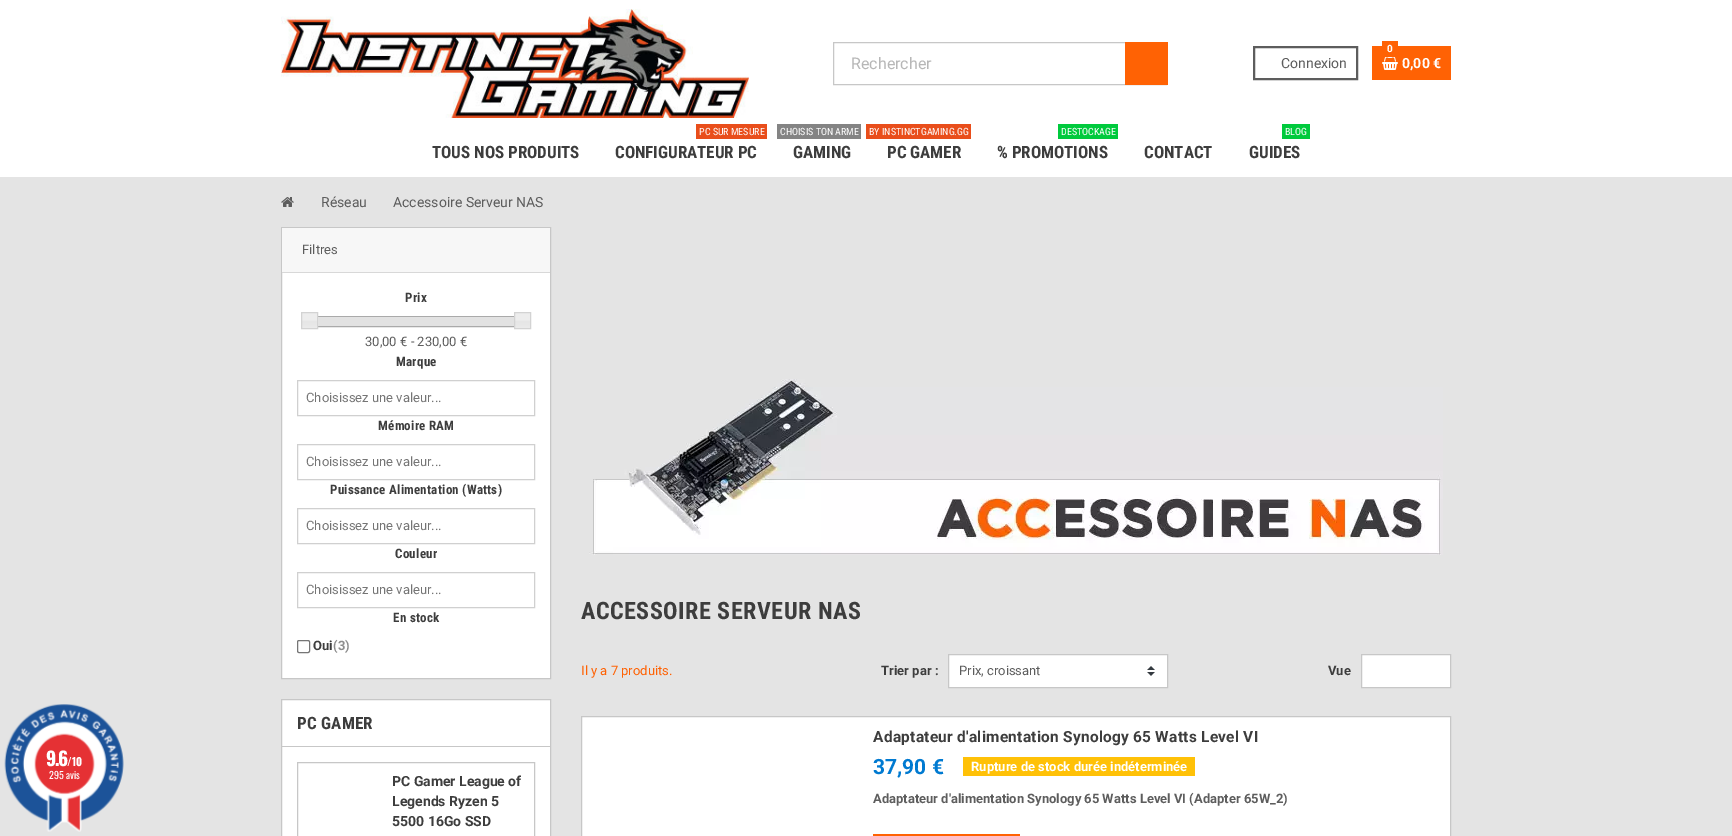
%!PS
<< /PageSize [1732 836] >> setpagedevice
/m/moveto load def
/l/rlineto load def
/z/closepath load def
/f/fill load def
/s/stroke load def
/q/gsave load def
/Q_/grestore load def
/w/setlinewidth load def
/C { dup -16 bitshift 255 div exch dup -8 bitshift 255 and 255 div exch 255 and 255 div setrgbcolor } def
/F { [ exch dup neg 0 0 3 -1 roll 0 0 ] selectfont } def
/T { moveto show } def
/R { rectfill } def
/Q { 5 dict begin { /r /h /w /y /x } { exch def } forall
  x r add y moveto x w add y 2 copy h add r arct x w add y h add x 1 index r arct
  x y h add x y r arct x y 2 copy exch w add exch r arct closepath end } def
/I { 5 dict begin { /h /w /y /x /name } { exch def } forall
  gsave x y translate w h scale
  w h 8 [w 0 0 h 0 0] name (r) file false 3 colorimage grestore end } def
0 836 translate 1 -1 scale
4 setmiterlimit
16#FFFFFF C
0 0 1732 836 R
16#E4E4E4 C
0 177 1732 659 R
(1.rgb) 4 704 120 128 I
/Oswald-Bold 19 F
16#FFFFFF C
46 766 m -1.5 0 (9.6) ashow
/Oswald-Bold 11 F
(/10) 67 766 T
/Oswald-Regular 10 F
(295 avis) 49 779 T
(2.rgb) 281 9 468 109 I
16#C7C7C7 C
833.5 42.5 333 42 rectstroke
/Roboto-Regular 16 F
16#B7B7B7 C
(Rechercher) 851 69 T
16#FF6204 C
1125 42 43 43 R
16#5D5D5D C
2 w
1254 47 103 32 rectstroke
/Roboto-Regular 14 F
(Connexion) 1281 68 T
16#FF6204 C
1372 46 79 34 R
1382 41 16 5 R
/Roboto-Bold 10 F
16#FFFFFF C
(0) 1387 52 T
(3.rgb) 1382 57 16 13 I
/Roboto-Bold 14 F
(0,00 €) 1402 68 T
/RobotoCondensed-Bold 17 F
16#3D3D3D C
(TOUS NOS PRODUITS) 432 158 T
16#E94E1B C
696 124 71 15 R
/RobotoCondensed-Regular 10 F
16#FFFFFF C
(PC SUR MESURE) 699 135 T
/RobotoCondensed-Bold 17 F
16#3D3D3D C
(CONFIGURATEUR PC) 615 158 T
16#848484 C
777 124 84 15 R
/RobotoCondensed-Regular 10 F
16#FFFFFF C
(CHOISIS TON ARME) 780 135 T
/RobotoCondensed-Bold 17 F
16#3D3D3D C
(GAMING) 793 158 T
16#E94E1B C
866 124 105 15 R
/RobotoCondensed-Regular 10 F
16#FFFFFF C
(BY INSTINCTGAMING.GG) 869 135 T
/RobotoCondensed-Bold 17 F
16#3D3D3D C
(PC GAMER) 887 158 T
16#00CA3D C
1058 124 60 15 R
/RobotoCondensed-Regular 10 F
16#FFFFFF C
(DESTOCKAGE) 1061 135 T
/RobotoCondensed-Bold 17 F
16#3D3D3D C
(% PROMOTIONS) 997 158 T
(CONTACT) 1144 158 T
16#00CA3D C
1282 124 28 15 R
/RobotoCondensed-Regular 10 F
16#FFFFFF C
(BLOG) 1285 135 T
/RobotoCondensed-Bold 17 F
16#3D3D3D C
(GUIDES) 1249 158 T
(4.rgb) 281 197 13 10 I
/Roboto-Regular 14 F
16#5D5D5D C
(Réseau) 321 207 T
(Accessoire Serveur NAS) 393 207 T
16#FFFFFF C
282 273 268 405 R
16#C7C7C7 C
1 w
281.5 227.5 269 451 rectstroke
16#F7F7F7 C
282 228 268 44 R
16#D8D8D8 C
282 272 268 1 R
/Roboto-Regular 13 F
16#5D5D5D C
(Filtres) 302 254 T
/RobotoCondensed-Bold 13 F
16#3D3D3D C
405 302 m .25 0 (Prix) ashow
16#AAAAAA C
309.5 316.5 213 10 rectstroke
(5.rgb) 302 313 15 15 I
16#D3D3D3 C
301.5 312.5 16 16 rectstroke
16#E2E2E2 C
318 317 196 9 R
(5.rgb) 515 313 15 15 I
16#D3D3D3 C
514.5 312.5 16 16 rectstroke
/Roboto-Regular 13 F
16#5D5D5D C
(30,00 € - 230,00 €) 365 346 T
/RobotoCondensed-Bold 13 F
16#3D3D3D C
396 366 m .25 0 (Marque) ashow
16#D0D0D0 C
297.5 380.5 237 35 rectstroke
/Roboto-Regular 13 F
16#757575 C
(Choisissez une valeur...) 306 402 T
/RobotoCondensed-Bold 13 F
16#3D3D3D C
378 430 m .25 0 (Mémoire RAM) ashow
16#D0D0D0 C
297.5 444.5 237 35 rectstroke
/Roboto-Regular 13 F
16#757575 C
(Choisissez une valeur...) 306 466 T
/RobotoCondensed-Bold 13 F
16#3D3D3D C
330 494 m .25 0 (Puissance Alimentation \(Watts\)) ashow
16#D0D0D0 C
297.5 508.5 237 35 rectstroke
/Roboto-Regular 13 F
16#757575 C
(Choisissez une valeur...) 306 530 T
/RobotoCondensed-Bold 13 F
16#3D3D3D C
395 558 m .25 0 (Couleur) ashow
16#D0D0D0 C
297.5 572.5 237 35 rectstroke
/Roboto-Regular 13 F
16#757575 C
(Choisissez une valeur...) 306 594 T
/RobotoCondensed-Bold 13 F
16#3D3D3D C
393 622 m .25 0 (En stock) ashow
16#767676 C
297.5 640.5 12 12 1.5 Q s
/Roboto-Bold 13 F
16#3D3D3D C
(Oui) 313 650 T
16#8D8D8D C
(\(3\)) 333 650 T
16#FFFFFF C
281.5 699.5 m 269 0 l 0 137 l -269 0 l z q f Q_
16#C7C7C7 C
s
282 746 268 1 R
/RobotoCondensed-Bold 17 F
16#3D3D3D C
297 729 m .25 0 (PC GAMER) ashow
16#C7C7C7 C
297.5 762.5 237 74 rectstroke
/Roboto-Bold 14 F
16#3D3D3D C
(PC Gamer League of) 392 786 T
(Legends Ryzen 5) 392 806 T
(5500 16Go SSD) 392 826 T
(6.rgb) 589 379 854 176 I
/RobotoCondensed-Bold 24 F
581 619 m .5 0 (ACCESSOIRE SERVEUR NAS) ashow
/Roboto-Regular 13 F
16#FF6204 C
(Il y a 7 produits.) 581 675 T
/Roboto-Bold 13 F
16#3D3D3D C
(Trier par :) 881 675 T
16#FFFFFF C
949 655 218 32 R
(7.rgb) 1147 666 8 10 I
16#C7C7C7 C
948.5 654.5 219 33 rectstroke
/Roboto-Regular 13 F
16#5D5D5D C
(Prix, croissant) 959 675 T
/Roboto-Bold 13 F
16#3D3D3D C
(Vue) 1328 675 T
16#FFFFFF C
1361.5 654.5 m 89 0 l 0 33 l -89 0 l z q f Q_
16#C7C7C7 C
s
16#FFFFFF C
581.5 716.5 m 869 0 l 0 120 l -869 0 l z q f Q_
16#C7C7C7 C
s
/Roboto-Bold 15.4 F
16#3D3D3D C
873 742 m .28 0 (Adaptateur d'alimentation Synology 65 Watts Level VI) ashow
/Roboto-Bold 21 F
16#007AD1 C
(37,90 €) 873 774 T
16#FFC107 C
963 757 232 19 R
/Roboto-Bold 13 F
16#FFFFFF C
(Rupture de stock durée indéterminée) 971 771 T
16#5D5D5D C
(Adaptateur d'alimentation Synology 65 Watts Level VI \(Adapter 65W_2\)) 873 803 T
16#FF6204 C
873 834 147 2 R
showpage
